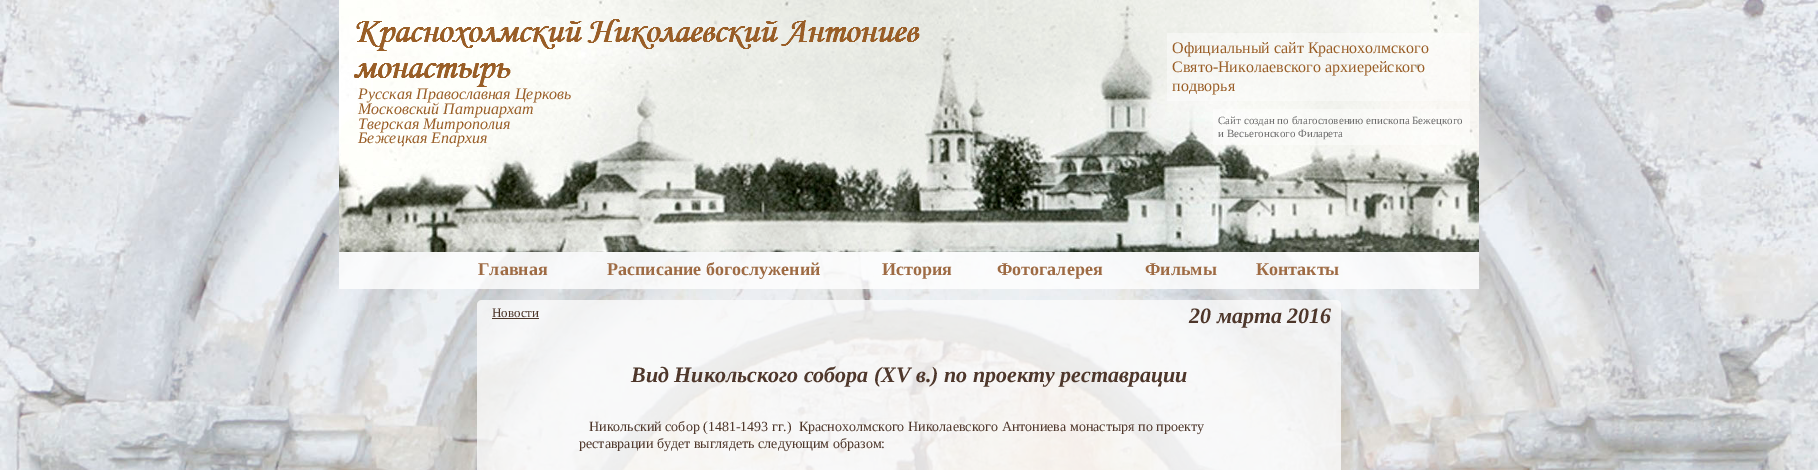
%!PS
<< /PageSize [1818 470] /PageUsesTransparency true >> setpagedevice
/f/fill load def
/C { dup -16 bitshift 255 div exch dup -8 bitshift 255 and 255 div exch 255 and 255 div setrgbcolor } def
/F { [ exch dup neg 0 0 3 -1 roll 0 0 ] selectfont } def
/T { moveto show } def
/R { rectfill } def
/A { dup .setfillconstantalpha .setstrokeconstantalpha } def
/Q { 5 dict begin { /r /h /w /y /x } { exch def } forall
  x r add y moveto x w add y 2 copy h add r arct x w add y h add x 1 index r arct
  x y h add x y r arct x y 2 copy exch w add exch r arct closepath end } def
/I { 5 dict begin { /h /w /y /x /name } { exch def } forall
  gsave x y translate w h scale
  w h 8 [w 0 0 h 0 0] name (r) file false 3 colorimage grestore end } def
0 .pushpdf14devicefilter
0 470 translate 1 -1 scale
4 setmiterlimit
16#FFFFFF C
0 0 1818 470 R
(1.rgb) 0 0 1818 470 I
(2.rgb) 339 0 1140 252 I
(3.rgb) 354 19 566 68 I
0.4 A
1167 33 303 68 1 Q f
/LiberationSerif-Regular 16 F
1 A
16#995E27 C
(Официальный сайт Краснохолмского) 1172 53 T
(Свято-Николаевского архиерейского) 1172 72 T
(подворья) 1172 91 T
0.4 A
16#FFFFFF C
1213 109 257 36 1 Q f
/LiberationSerif-Regular 11 F
1 A
16#6B6B6B C
(Сайт создан по благословению епископа Бежецкого) 1218 124 T
(и Весьегонского Филарета) 1218 137 T
/LiberationSerif-Italic 16 F
16#995E27 C
(Русская Православная Церковь) 358 99 T
(Московский Патриархат) 358 114 T
(Тверская Митрополия) 358 129 T
(Бежецкая Епархия) 358 143 T
0.8 A
16#FFFFFF C
339 252 1140 37 R
/LiberationSerif-Bold 18 F
1 A
16#9E6B44 C
(Главная) 478 275 T
(Расписание богослужений) 607 275 T
(История) 882 275 T
(Фотогалерея) 997 275 T
(Фильмы) 1145 275 T
(Контакты) 1256 275 T
0.8 A
16#FBFBFB C
477 300 864 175 5 Q f
/LiberationSerif-Regular 13 F
1 A
16#4E372B C
(Новости) 492 317 T
492 318 47 1 R
/LiberationSerif-BoldItalic 22 F
(20 марта 2016) 1189 323 T
(Вид Никольского собора \(XV в.\) по проекту реставрации) 631 382 T
/LiberationSerif-Regular 14 F
(Никольский собор \(1481-1493 гг.\)  Краснохолмского Николаевского Антониева монастыря по проекту) 589 431 T
(реставрации будет выглядеть следующим образом:) 579 448 T
.poppdf14devicefilter showpage
